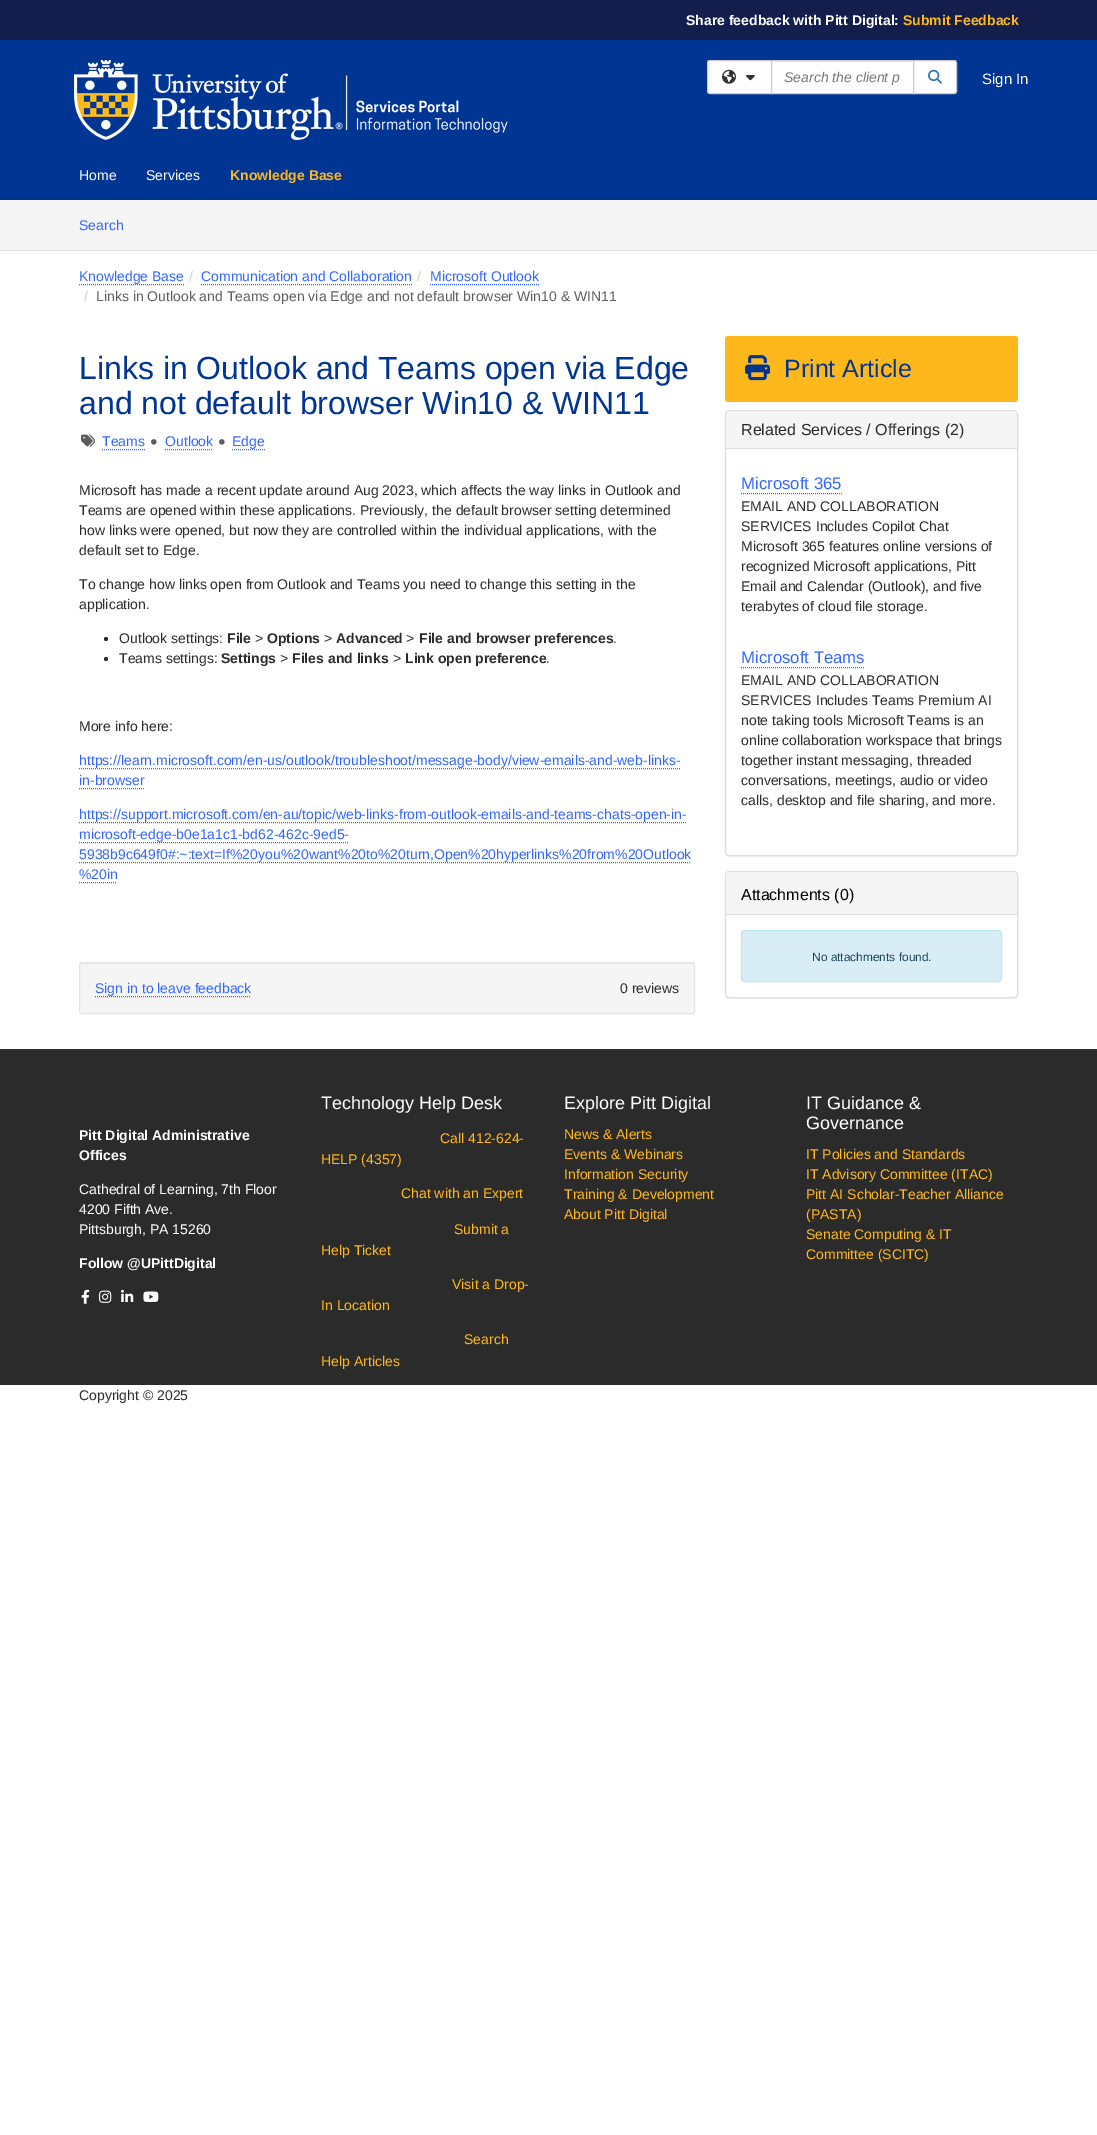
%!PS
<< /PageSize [1097 2135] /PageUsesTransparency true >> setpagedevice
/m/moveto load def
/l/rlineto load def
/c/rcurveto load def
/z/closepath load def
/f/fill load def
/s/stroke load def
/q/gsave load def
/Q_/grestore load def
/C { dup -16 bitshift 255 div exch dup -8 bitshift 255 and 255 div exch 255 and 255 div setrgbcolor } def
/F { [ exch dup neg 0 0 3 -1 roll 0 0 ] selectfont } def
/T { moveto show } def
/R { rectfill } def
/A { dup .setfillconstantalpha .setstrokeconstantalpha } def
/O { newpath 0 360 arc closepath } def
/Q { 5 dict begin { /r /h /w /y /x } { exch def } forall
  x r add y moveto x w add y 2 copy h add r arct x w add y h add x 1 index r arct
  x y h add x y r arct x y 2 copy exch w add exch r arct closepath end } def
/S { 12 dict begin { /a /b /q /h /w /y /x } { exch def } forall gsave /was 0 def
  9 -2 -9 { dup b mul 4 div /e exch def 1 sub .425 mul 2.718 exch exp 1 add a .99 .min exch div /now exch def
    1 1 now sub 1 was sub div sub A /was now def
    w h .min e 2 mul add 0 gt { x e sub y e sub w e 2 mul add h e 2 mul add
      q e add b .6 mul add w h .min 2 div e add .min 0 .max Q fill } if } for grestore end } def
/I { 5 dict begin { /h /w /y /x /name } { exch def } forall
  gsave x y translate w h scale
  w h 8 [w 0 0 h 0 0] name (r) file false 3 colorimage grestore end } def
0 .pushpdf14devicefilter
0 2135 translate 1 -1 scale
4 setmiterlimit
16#FFFFFF C
0 0 1097 2135 R
16#131E4C C
0 0 1097 40 R
/LiberationSans-Bold 14 F
16#FFFFFF C
(Share feedback with Pitt Digital:) 686 25 T
16#FFB81C C
(Submit Feedback) 903 25 T
16#003594 C
0 40 1097 160 R
(1.rgb) 74 60 434 80 I
16#FFFFFF C
710 60.5 m 61.5 0 l 0 33 l -61.5 0 l -1.5 0 -2.5 -1 -2.5 -2.5 c 0 -28 l 0 -1.5 1 -2.5 2.5 -2.5 c z q f Q_
16#CCCCCC C
s
(2.rgb) 722 69 14 15 I
(3.rgb) 746 75 9 6 I
16#FFFFFF C
772 62 141 31 R
16#ECECEC C
772 61 141 1 R
16#CCCCCC C
771.5 60.5 142 33 rectstroke
/LiberationSans-Italic 14 F
16#767676 C
(Search the client p) 784 82 T
16#FFFFFF C
913.5 60.5 m 40.5 0 l 1.5 0 2.5 1 2.5 2.5 c 0 28 l 0 1.5 -1 2.5 -2.5 2.5 c -40.5 0 l z q f Q_
16#CCCCCC C
s
(4.rgb) 928 69 14 15 I
/LiberationSans-Regular 15 F
16#FFFFFF C
(Sign In) 982 84 T
/LiberationSans-Regular 14 F
(Home) 79 180 T
(Services) 146 180 T
/LiberationSans-Bold 14 F
16#FFB81C C
(Knowledge Base) 230 180 T
16#F5F5F5 C
0 200 1097 50 R
16#E3E3E3 C
0 250 1097 1 R
/LiberationSans-Regular 14 F
16#3366FF C
(Search) 79 230 T
(Knowledge Base) 79 281 T
[1 1] 0 setdash
79 284.5 m 105 0 l s
16#CCCCCC C
(/) 189 281 T
16#3366FF C
(Communication and Collaboration) 201 281 T
201 284.5 m 211 0 l s
16#CCCCCC C
(/) 417 281 T
16#3366FF C
(Microsoft Outlook) 430 281 T
430 284.5 m 109 0 l s
16#CCCCCC C
(/) 84 301 T
16#5E5E5E C
(Links in Outlook and Teams open via Edge and not default browser Win10 & WIN11) 96 301 T
/LiberationSans-Regular 32 F
16#003594 C
(Links in Outlook and Teams open via Edge) 79 379 T
(and not default browser Win10 & WIN11) 79 414 T
(5.rgb) 81 434 14 13 I
/LiberationSans-Regular 14 F
16#3366FF C
(Teams) 102 446 T
102 449.5 m 43 0 l s
(6.rgb) 151 439 6 6 I
(Outlook) 165 446 T
165 449.5 m 48 0 l s
(6.rgb) 219 439 6 6 I
(Edge) 232 446 T
232 449.5 m 33 0 l s
16#2B2B2B C
(Microsoft has made a recent update around Aug 2023, which affects the way links in Outlook and) 79 495 T
(Teams are opened within these applications. Previously, the default browser setting determined) 79 515 T
(how links were opened, but now they are controlled within the individual applications, with the) 79 535 T
(default set to Edge.) 79 555 T
(To change how links open from Outlook and Teams you need to change this setting in the) 79 589 T
(application.) 79 609 T
106 639 2 O f
(Outlook settings:) 119 643 T
/LiberationSans-Bold 14 F
(File) 227 643 T
/LiberationSans-Regular 14 F
(>) 255 643 T
/LiberationSans-Bold 14 F
(Options) 267 643 T
/LiberationSans-Regular 14 F
(>) 324 643 T
/LiberationSans-Bold 14 F
(Advanced) 336 643 T
/LiberationSans-Regular 14 F
(>) 406 643 T
/LiberationSans-Bold 14 F
(File and browser preferences) 419 643 T
/LiberationSans-Regular 14 F
(.) 613 643 T
106 659 2 O f
(Teams settings:) 119 663 T
/LiberationSans-Bold 14 F
(Settings) 221 663 T
/LiberationSans-Regular 14 F
(>) 280 663 T
/LiberationSans-Bold 14 F
(Files and links) 292 663 T
/LiberationSans-Regular 14 F
(>) 393 663 T
/LiberationSans-Bold 14 F
(Link open preference) 405 663 T
/LiberationSans-Regular 14 F
(.) 546 663 T
(More info here:) 79 731 T
16#3366FF C
(https://learn.microsoft.com/en-us/outlook/troubleshoot/message-body/view-emails-and-web-links-) 79 765 T
79 768.5 m 601 0 l s
(in-browser) 79 785 T
79 788.5 m 65 0 l s
(https://support.microsoft.com/en-au/topic/web-links-from-outlook-emails-and-teams-chats-open-in-) 79 819 T
79 822.5 m 607 0 l s
(microsoft-edge-b0e1a1c1-bd62-462c-9ed5-) 79 839 T
79 842.5 m 270 0 l s
(5938b9c649f0#:~:text=If%20you%20want%20to%20turn,Open%20hyperlinks%20from%20Outlook) 79 859 T
79 862.5 m 612 0 l s
(%20in) 79 879 T
79 882.5 m 38 0 l s
16#F5F5F5 C
79 962 616 52 3 Q f
16#E9E9E9 C
82 964 m 610 0 l 1 0 2 1 2 2 c 0 -1 0 -3 -2 -3 c -610 0 l -2 0 -2 2 -2 3 c 0 -1 1 -2 2 -2 c z f
16#E3E3E3 C
[] 0 setdash
79.5 962.5 615 51 2.5 Q s
16#3366FF C
(Sign in to leave feedback) 95 993 T
[1 1] 0 setdash
95 996.5 m 156 0 l s
16#2B2B2B C
(0 reviews) 620 993 T
16#FFB81C C
725 336 293 66 3 Q f
(7.rgb) 745 355 25 26 I
/LiberationSans-Regular 25 F
16#003594 C
(Print Article) 784 377 T
16#000000 C
725 411 293 446 4 .5 .05 S
16#FFFFFF C
725.5 410.5 292 445 3.5 Q q f Q_
16#DDDDDD C
[] 0 setdash
s
16#F5F5F5 C
729 411 m 285 0 l 1.5 0 3 1.5 3 3 c 0 35 l -291 0 l 0 -35 l 0 -1.5 1.5 -3 3 -3 c z f
16#DDDDDD C
726 448 291 1 R
/LiberationSans-Regular 16 F
16#2B2B2B C
(Related Services / Offerings \(2\)) 741 435 T
/LiberationSans-Regular 16.75 F
16#3366FF C
(Microsoft 365) 741 489 T
[1 1] 0 setdash
741 493.5 m 101 0 l s
/LiberationSans-Regular 14 F
16#2B2B2B C
(EMAIL AND COLLABORATION) 741 511 T
(SERVICES Includes Copilot Chat) 741 531 T
(Microsoft 365 features online versions of) 741 551 T
(recognized Microsoft applications, Pitt) 741 571 T
(Email and Calendar \(Outlook\), and five) 741 591 T
(terabytes of cloud file storage.) 741 611 T
/LiberationSans-Regular 16.75 F
16#3366FF C
(Microsoft Teams) 741 663 T
741 667.5 m 124 0 l s
/LiberationSans-Regular 14 F
16#2B2B2B C
(EMAIL AND COLLABORATION) 741 685 T
(SERVICES Includes Teams Premium AI) 741 705 T
(note taking tools Microsoft Teams is an) 741 725 T
(online collaboration workspace that brings) 741 745 T
(together instant messaging, threaded) 741 765 T
(conversations, meetings, audio or video) 741 785 T
(calls, desktop and file sharing, and more.) 741 805 T
16#000000 C
725 872 293 127 4 .5 .05 S
16#FFFFFF C
725.5 871.5 292 126 3.5 Q q f Q_
16#DDDDDD C
[] 0 setdash
s
16#F5F5F5 C
729 872 m 285 0 l 1.5 0 3 1.5 3 3 c 0 40 l -291 0 l 0 -40 l 0 -1.5 1.5 -3 3 -3 c z f
16#DDDDDD C
726 914 291 1 R
/LiberationSans-Regular 16 F
16#000000 C
(Attachments \(0\)) 741 900 T
16#D9EDF7 C
741.5 930.5 260 51 3.5 Q q f Q_
16#BCE8F1 C
s
/LiberationSans-Regular 11.9 F
16#1D4356 C
(No attachments found.) 812 961 T
16#2B2B2B C
0 1049 1097 336 R
/LiberationSans-Bold 14 F
16#FFFFFF C
(Pitt Digital Administrative) 79 1140 T
(Offices) 79 1160 T
/LiberationSans-Regular 14 F
(Cathedral of Learning, 7th Floor) 79 1194 T
(4200 Fifth Ave.) 79 1214 T
(Pittsburgh, PA 15260) 79 1234 T
/LiberationSans-Bold 14 F
(Follow @UPittDigital) 79 1268 T
(8.rgb) 81 1289 9 15 I
(9.rgb) 99 1290 13 13 I
(10.rgb) 121 1289 13 13 I
(11.rgb) 143 1291 16 11 I
/LiberationSans-Regular 18 F
(Technology Help Desk) 321 1109 T
/LiberationSans-Regular 14 F
16#FFB81C C
(Call 412-624-) 440 1143 T
(HELP \(4357\)) 321 1164 T
(Chat with an Expert) 401 1198 T
(Submit a) 454 1234 T
(Help Ticket) 321 1255 T
(Visit a Drop-) 452 1289 T
(In Location) 321 1310 T
(Search) 464 1344 T
(Help Articles) 321 1366 T
/LiberationSans-Regular 18 F
16#FFFFFF C
(Explore Pitt Digital) 564 1109 T
/LiberationSans-Regular 14 F
16#FFB81C C
(News & Alerts) 564 1139 T
(Events & Webinars) 564 1159 T
(Information Security) 564 1179 T
(Training & Development) 564 1199 T
(About Pitt Digital) 564 1219 T
/LiberationSans-Regular 18 F
16#FFFFFF C
(IT Guidance &) 806 1109 T
(Governance) 806 1129 T
/LiberationSans-Regular 14 F
16#FFB81C C
(IT Policies and Standards) 806 1159 T
(IT Advisory Committee \(ITAC\)) 806 1179 T
(Pitt AI Scholar-Teacher Alliance) 806 1199 T
(\(PASTA\)) 806 1219 T
(Senate Computing & IT) 806 1239 T
(Committee \(SCITC\)) 806 1259 T
16#2B2B2B C
(Copyright © 2025) 79 1400 T
.poppdf14devicefilter showpage
